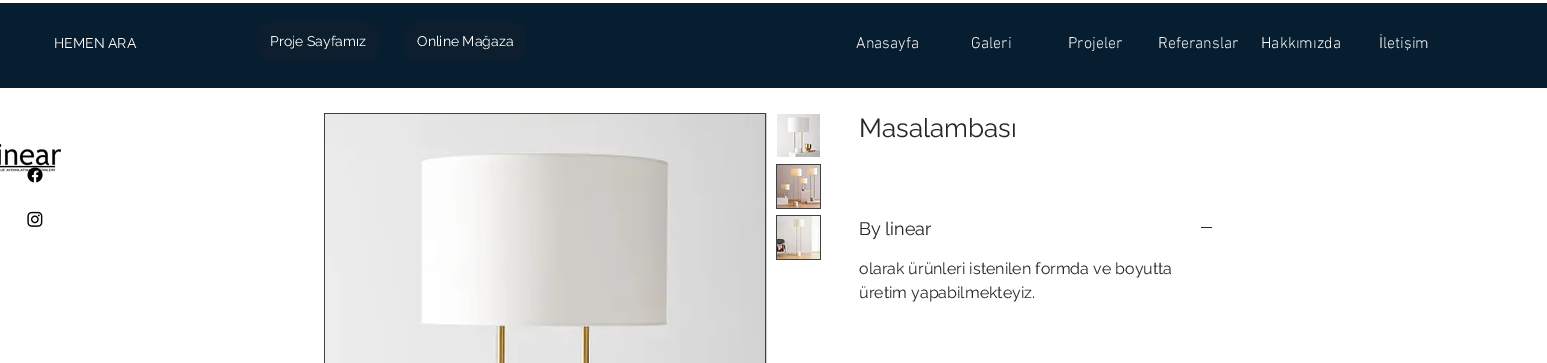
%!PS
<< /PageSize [1547 363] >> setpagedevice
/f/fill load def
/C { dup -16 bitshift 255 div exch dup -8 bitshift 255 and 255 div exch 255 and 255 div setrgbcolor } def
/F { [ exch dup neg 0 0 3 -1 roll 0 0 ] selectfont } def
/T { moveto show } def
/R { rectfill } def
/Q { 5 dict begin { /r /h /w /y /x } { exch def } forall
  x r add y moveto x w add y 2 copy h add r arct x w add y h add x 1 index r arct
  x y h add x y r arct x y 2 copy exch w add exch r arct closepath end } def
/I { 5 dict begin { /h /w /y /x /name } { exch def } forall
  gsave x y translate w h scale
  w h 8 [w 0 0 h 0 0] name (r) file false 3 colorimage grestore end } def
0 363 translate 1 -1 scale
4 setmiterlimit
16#FFFFFF C
0 0 1547 363 R
16#071D30 C
0 3 1547 85 R
/Raleway-Regular 14 F
16#FFFFFF C
(HEMEN ARA) 54 48 T
16#0D1F2E C
257 22 122 40 15 Q f
16#FFFFFF C
(Proje Sayfamız) 270 46 T
16#0D1F2E C
404 22 122 40 15 Q f
16#FFFFFF C
(Online Mağaza) 417 46 T
/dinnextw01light-Light 16 F
(Anasayfa) 856 48 T
(Galeri) 971 48 T
(Projeler) 1068 48 T
(Referanslar) 1158 48 T
(Hakkımızda) 1261 48 T
(İletişim) 1379 48 T
(3.rgb) 0 143 61 29 I
(1.rgb) 27 167 16 16 I
(2.rgb) 27 211 16 16 I
16#414141 C
324.5 113.5 441 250 rectstroke
(4.rgb) 325 114 440 249 I
(5.rgb) 777 114 43 43 I
776 164 45 45 R
(6.rgb) 777 165 43 43 I
776 215 45 45 R
(7.rgb) 777 216 43 43 I
/Raleway-Regular 26 F
16#262626 C
(Masalambası) 859 137 T
/Raleway-Regular 18 F
(By linear) 859 235 T
1201 227 11 1 R
/Raleway-Regular 16 F
(olarak ürünleri istenilen formda ve boyutta) 859 274 T
(üretim yapabilmekteyiz.) 859 298 T
showpage
